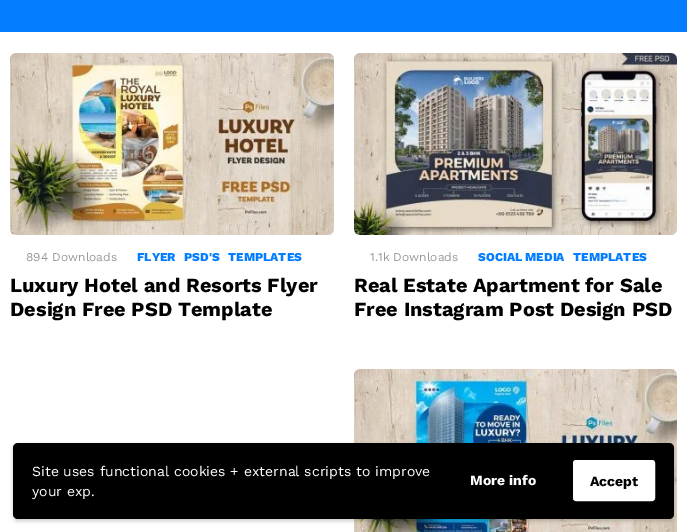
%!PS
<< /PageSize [687 532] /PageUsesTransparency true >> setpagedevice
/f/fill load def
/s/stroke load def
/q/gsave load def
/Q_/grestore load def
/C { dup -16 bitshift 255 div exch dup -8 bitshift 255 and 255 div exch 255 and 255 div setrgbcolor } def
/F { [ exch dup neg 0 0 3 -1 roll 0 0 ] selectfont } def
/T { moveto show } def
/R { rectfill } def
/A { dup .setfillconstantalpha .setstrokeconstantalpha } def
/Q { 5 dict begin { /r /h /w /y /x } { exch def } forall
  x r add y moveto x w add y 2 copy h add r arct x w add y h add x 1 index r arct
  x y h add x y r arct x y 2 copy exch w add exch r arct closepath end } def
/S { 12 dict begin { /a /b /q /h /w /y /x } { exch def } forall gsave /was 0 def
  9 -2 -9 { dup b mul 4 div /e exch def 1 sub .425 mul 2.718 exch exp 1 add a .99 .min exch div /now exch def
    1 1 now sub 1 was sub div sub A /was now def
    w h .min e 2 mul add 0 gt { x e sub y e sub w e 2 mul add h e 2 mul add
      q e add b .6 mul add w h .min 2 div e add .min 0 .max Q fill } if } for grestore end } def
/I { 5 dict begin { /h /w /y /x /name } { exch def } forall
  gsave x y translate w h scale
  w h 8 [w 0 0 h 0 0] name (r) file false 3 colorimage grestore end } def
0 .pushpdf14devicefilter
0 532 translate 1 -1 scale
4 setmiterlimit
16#FFFFFF C
0 0 687 532 R
16#057DFF C
0 0 687 32 R
(1.rgb) 10 53 324 182 I
/WorkSans-Regular 12 F
16#999999 C
(894 Downloads) 26 261 T
/WorkSans-ExtraBold 12 F
16#057DFF C
(FLYER) 137 261 T
(PSD'S) 184 261 T
(TEMPLATES) 228 261 T
/WorkSans-Bold 20 F
16#000000 C
(Luxury Hotel and Resorts Flyer) 10 292 T
(Design Free PSD Template) 10 316 T
(2.rgb) 354 53 323 182 I
/WorkSans-Regular 12 F
16#999999 C
(1.1k Downloads) 370 261 T
/WorkSans-ExtraBold 12 F
16#057DFF C
(SOCIAL MEDIA) 478 261 T
(TEMPLATES) 573 261 T
/WorkSans-Bold 20 F
16#000000 C
(Real Estate Apartment for Sale) 354 292 T
(Free Instagram Post Design PSD) 354 316 T
(3.rgb) 354 369 323 163 I
13 445 661 76 5 2 .2 S
13 443 661 76 5 Q f
/WorkSans-Regular 14 F
16#FFFFFF C
(Site uses functional cookies + external scripts to improve) 32 476 T
(your exp.) 32 496 T
/WorkSans-Bold 14 F
(More info) 470 485 T
573.5 460.5 81 40 2.5 Q q f Q_
s
16#000000 C
(Accept) 590 486 T
.poppdf14devicefilter showpage
